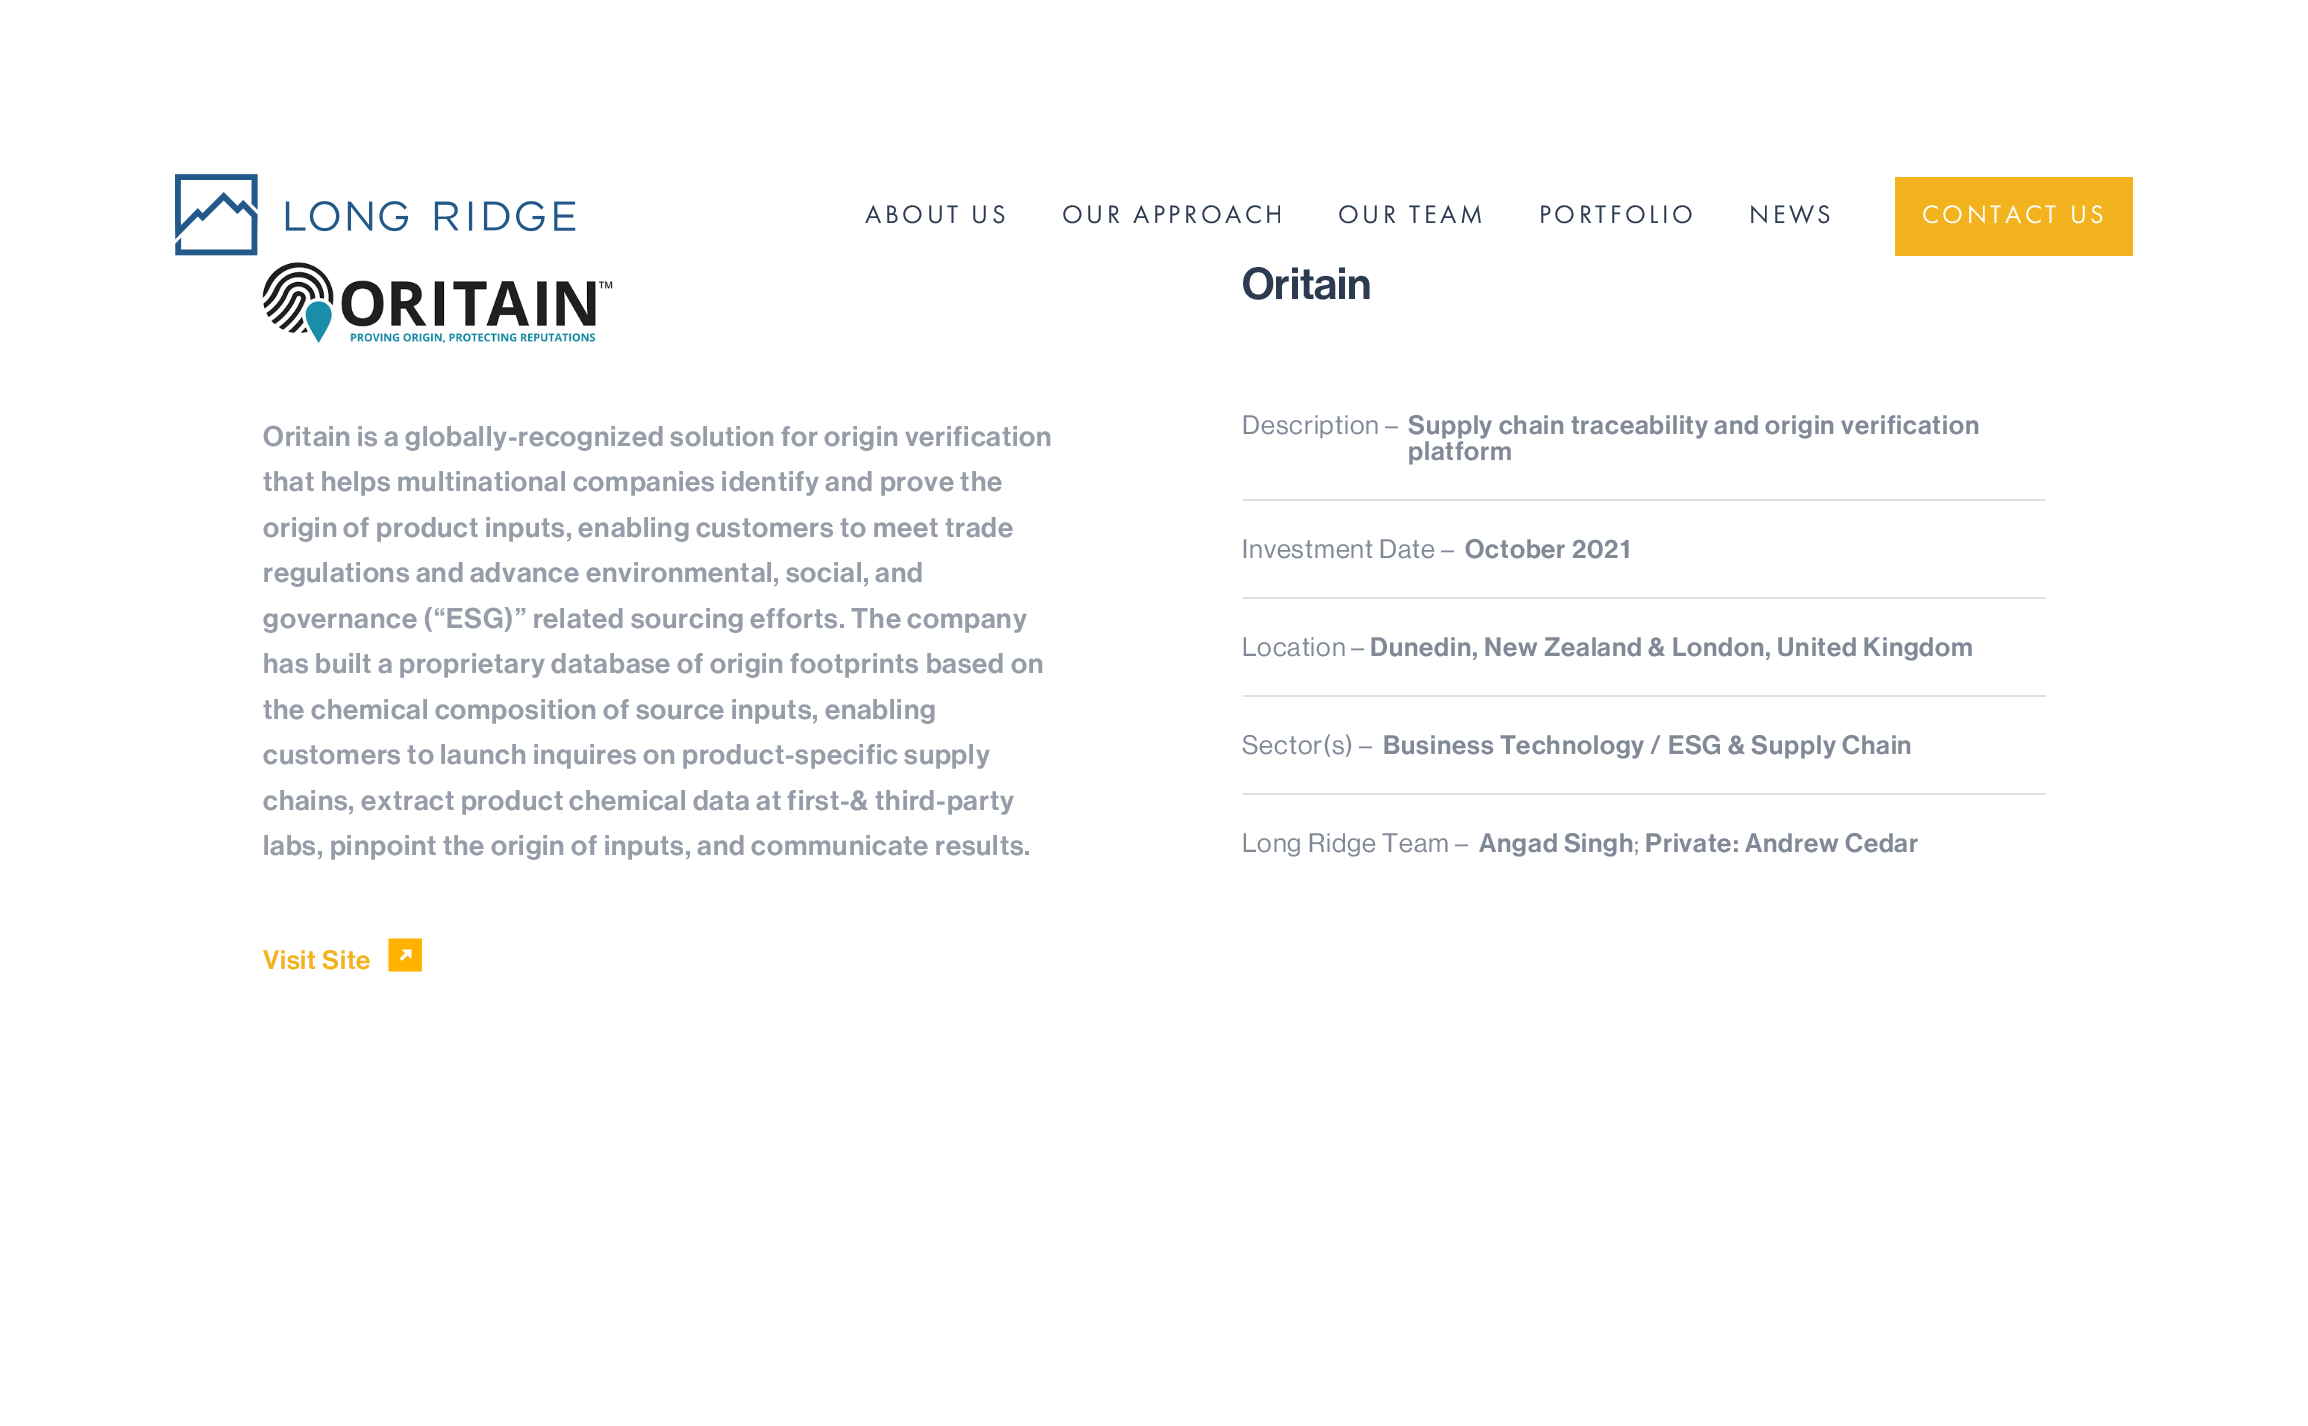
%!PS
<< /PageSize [2308 1426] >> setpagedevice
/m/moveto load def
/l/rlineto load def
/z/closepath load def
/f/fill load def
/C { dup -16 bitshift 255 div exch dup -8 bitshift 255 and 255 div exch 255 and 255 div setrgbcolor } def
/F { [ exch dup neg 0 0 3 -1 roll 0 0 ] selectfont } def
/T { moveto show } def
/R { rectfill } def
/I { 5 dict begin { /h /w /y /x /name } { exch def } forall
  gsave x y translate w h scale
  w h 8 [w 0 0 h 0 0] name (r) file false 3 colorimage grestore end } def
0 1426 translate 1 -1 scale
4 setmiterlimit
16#FFFFFF C
0 0 2308 1426 R
(1.rgb) 175 174 401 82 I
/FuturaPT-Regular 26.25 F
16#2D3B51 C
865 223 m 3.5 0 (ABOUT US) ashow
1062 223 m 3.5 0 (OUR APPROACH) ashow
1338 223 m 3.5 0 (OUR TEAM) ashow
1539 223 m 3.5 0 (PORTFOLIO) ashow
1749 223 m 3.5 0 (NEWS) ashow
16#F2B31F C
1895 177 238 79 R
16#FFFFFF C
1922 223 m 3.5 0 (CONTACT US) ashow
(2.rgb) 262 262 351 81 I
/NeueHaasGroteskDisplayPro-Medium 28 F
16#969DA8 C
263 446 m .88 0 (Oritain is a globally-recognized solution for origin verification) ashow
263 491 m .88 0 (that helps multinational companies identify and prove the) ashow
263 537 m .88 0 (origin of product inputs, enabling customers to meet trade) ashow
263 582 m .88 0 (regulations and advance environmental, social, and) ashow
263 628 m .88 0 (governance \(“ESG\)” related sourcing efforts. The company) ashow
263 673 m .88 0 (has built a proprietary database of origin footprints based on) ashow
263 719 m .88 0 (the chemical composition of source inputs, enabling) ashow
263 764 m .88 0 (customers to launch inquires on product-specific supply) ashow
263 810 m .88 0 (chains, extract product chemical data at first-& third-party) ashow
263 855 m .88 0 (labs, pinpoint the origin of inputs, and communicate results.) ashow
/NeueHaasGroteskDisplayPro-Medium 26.25 F
16#F2B31F C
263 969 m .88 0 (Visit Site) ashow
16#FFB200 C
388.5 938.5 m 33.5 0 l 0 33 l -33.5 0 l z 407.5 955.5 m 4 4 l 0 -10 l -10 0 l 3.5 3.5 l -5.5 5.5 l 2.5 2.5 l z f
/NeueHaasGroteskDisplayPro-Medium 44 F
16#2D3B51 C
(Oritain) 1242 299 T
16#E0E0E0 C
1243 499 803 2 R
/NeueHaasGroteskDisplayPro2-Medium 26.25 F
16#818997 C
1242 434 m .88 0 (Description –) ashow
/NeueHaasGroteskDisplayPro-Medium 26.25 F
1408 434 m .88 0 (Supply chain traceability and origin verification) ashow
1408 460 m .88 0 (platform) ashow
16#E0E0E0 C
1243 597 803 2 R
/NeueHaasGroteskDisplayPro2-Medium 26.25 F
16#818997 C
1242 558 m .88 0 (Investment Date –) ashow
/NeueHaasGroteskDisplayPro-Medium 26.25 F
1465 558 m .88 0 (October 2021) ashow
16#E0E0E0 C
1243 695 803 2 R
/NeueHaasGroteskDisplayPro2-Medium 26.25 F
16#818997 C
1242 656 m .88 0 (Location –) ashow
/NeueHaasGroteskDisplayPro-Medium 26.25 F
1370 656 m .88 0 (Dunedin, New Zealand & London, United Kingdom) ashow
16#E0E0E0 C
1243 793 803 2 R
/NeueHaasGroteskDisplayPro2-Medium 26.25 F
16#818997 C
1242 754 m .88 0 (Sector\(s\) –) ashow
/NeueHaasGroteskDisplayPro-Medium 26.25 F
1383 754 m .88 0 (Business Technology / ESG & Supply Chain) ashow
/NeueHaasGroteskDisplayPro2-Medium 26.25 F
1242 852 m .88 0 (Long Ridge Team –) ashow
/NeueHaasGroteskDisplayPro-Medium 26.25 F
1479 852 m .88 0 (Angad Singh) ashow
/NeueHaasGroteskDisplayPro2-Medium 26.25 F
1634 852 m .88 0 (;) ashow
/NeueHaasGroteskDisplayPro-Medium 26.25 F
1645 852 m .88 0 (Private: Andrew Cedar) ashow
showpage
